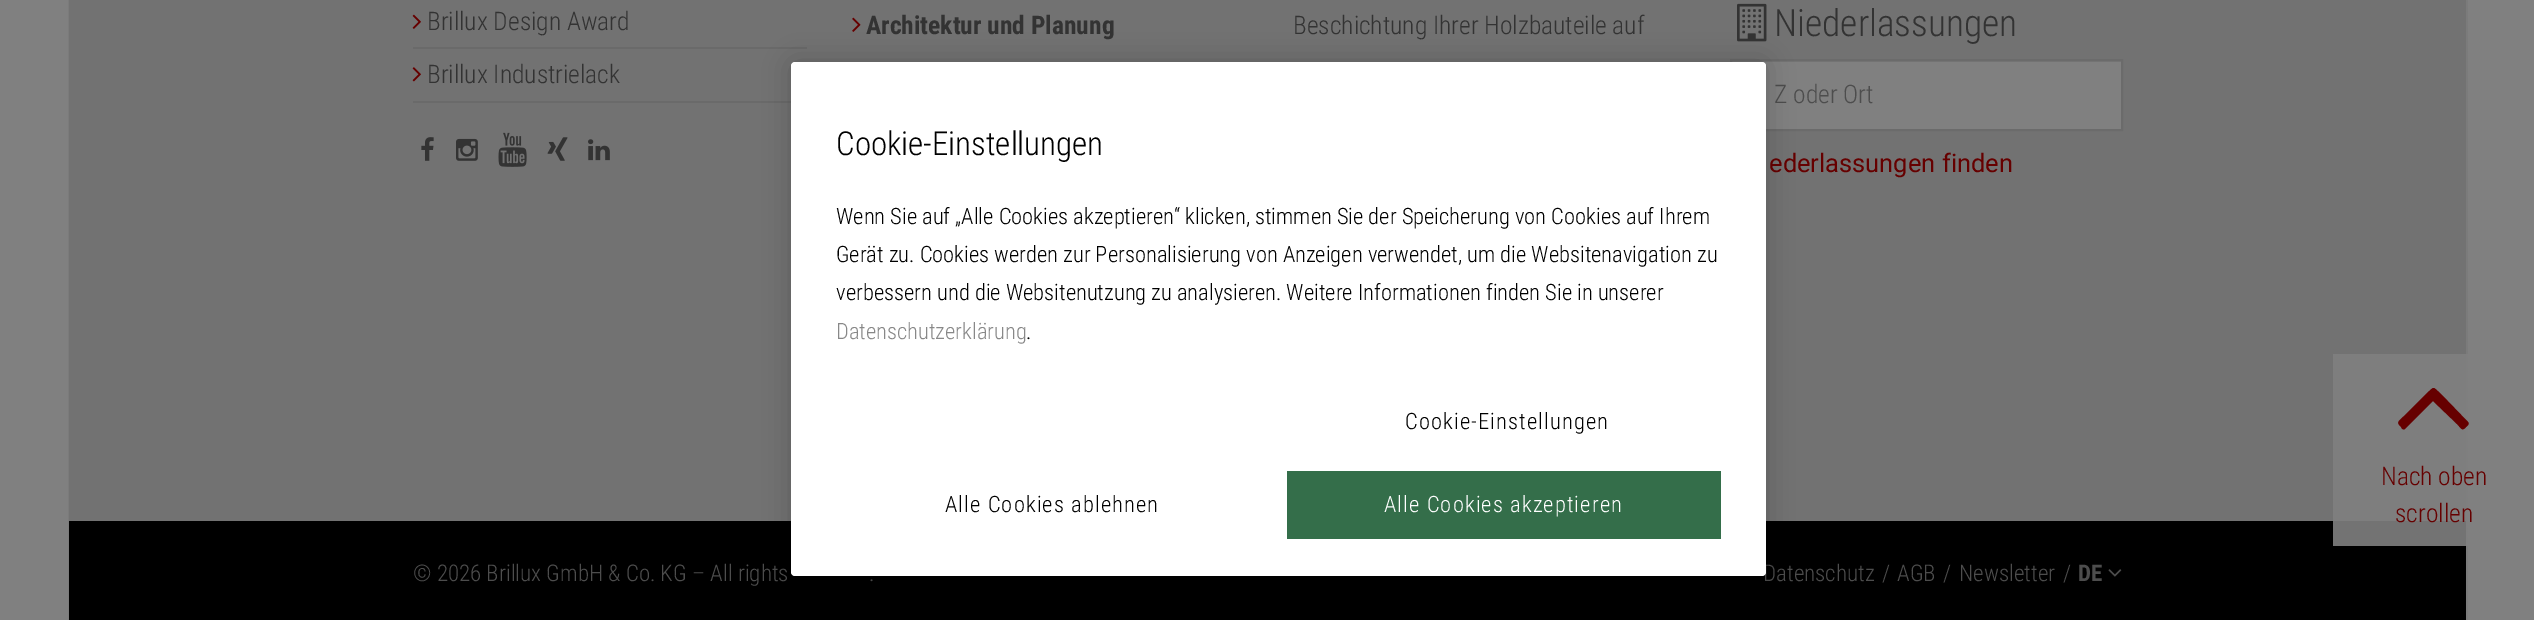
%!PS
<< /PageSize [2534 620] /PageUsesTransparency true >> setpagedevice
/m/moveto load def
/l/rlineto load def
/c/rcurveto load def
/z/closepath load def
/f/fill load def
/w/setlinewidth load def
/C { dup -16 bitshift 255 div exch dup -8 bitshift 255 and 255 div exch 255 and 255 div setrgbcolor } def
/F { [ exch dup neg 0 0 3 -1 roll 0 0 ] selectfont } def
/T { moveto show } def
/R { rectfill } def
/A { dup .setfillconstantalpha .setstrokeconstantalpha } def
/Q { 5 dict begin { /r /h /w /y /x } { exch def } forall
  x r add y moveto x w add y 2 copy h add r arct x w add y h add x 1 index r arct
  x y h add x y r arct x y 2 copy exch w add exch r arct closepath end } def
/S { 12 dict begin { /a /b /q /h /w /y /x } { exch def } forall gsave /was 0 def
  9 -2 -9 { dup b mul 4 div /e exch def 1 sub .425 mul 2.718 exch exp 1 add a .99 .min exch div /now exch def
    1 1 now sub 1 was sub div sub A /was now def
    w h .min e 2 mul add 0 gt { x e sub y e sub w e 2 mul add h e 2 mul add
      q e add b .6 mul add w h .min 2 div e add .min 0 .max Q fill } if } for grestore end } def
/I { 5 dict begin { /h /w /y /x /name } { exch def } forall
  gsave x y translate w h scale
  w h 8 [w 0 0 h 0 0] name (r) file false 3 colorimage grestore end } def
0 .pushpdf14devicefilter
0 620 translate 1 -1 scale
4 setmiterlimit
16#808080 C
0 0 2534 620 R
16#7B7B7B C
2466 0 2 620 R
16#7F7F7F C
2466 354 2 192 R
16#7B7B7B C
68 0 1 620 R
16#727272 C
69 0 2397 521 R
16#7E7E7E C
2333 354 133 167 R
16#6A6A6A C
413 47 394 2 R
(1.rgb) 412 14 9 15 I
/RobotoCondensed-Light 25.5 F
16#333333 C
(Brillux Design Award) 427 30 T
16#6A6A6A C
413 101 378 2 R
(2.rgb) 412 67 9 15 I
16#333333 C
(Brillux Industrielack) 427 83 T
(3.rgb) 421 137 13 24 I
(4.rgb) 456 138 22 23 I
(5.rgb) 498 132 29 35 I
(6.rgb) 547 137 21 24 I
(7.rgb) 588 139 22 22 I
(8.rgb) 852 17 9 15 I
/RobotoCondensed-Bold 25.5 F
(Architektur und Planung) 866 34 T
/RobotoCondensed-Light 25.5 F
(Beschichtung Ihrer Holzbauteile auf) 1293 34 T
(9.rgb) 1737 3 30 39 I
/RobotoCondensed-Light 37.5 F
(Niederlassungen) 1774 36 T
16#808080 C
1762 62 359 67 R
16#767676 C
1731 61 390 1 R
16#6B6B6B C
2 w
1731 60 391 70 rectstroke
/RobotoCondensed-Light 25.5 F
16#4D4D4D C
(Z oder Ort) 1774 103 T
/Roboto-Regular 25.5 F
16#660000 C
(ederlassungen finden) 1769 172 T
16#000000 C
69 521 2397 99 R
16#737373 C
2333 521 133 25 R
/RobotoCondensed-Light 23 F
16#4D4D4D C
(© 2026 Brillux GmbH & Co. KG – All rights) 413 581 T
(.) 869 581 T
(Datenschutz) 1763 581 T
(/) 1882 581 T
(AGB) 1897 581 T
(/) 1943 581 T
(Newsletter) 1959 581 T
(/) 2063 581 T
/RobotoCondensed-Bold 23 F
(DE) 2078 581 T
(10.rgb) 2108 569 14 8 I
16#000000 C
791 62 975 514 4 13.5 .2 S
16#FFFFFF C
791 62 975 514 4 Q f
/RobotoCondensed-Light 33 F
16#000000 C
(Cookie-Einstellungen) 836 155 T
/RobotoCondensed-Light 22.5 F
(Wenn Sie auf „Alle Cookies akzeptieren“ klicken, stimmen Sie der Speicherung von Cookies auf Ihrem) 836 224 T
(Gerät zu. Cookies werden zur Personalisierung von Anzeigen verwendet, um die Websitenavigation zu) 836 262 T
(verbessern und die Websitenutzung zu analysieren. Weitere Informationen finden Sie in unserer) 836 300 T
16#888888 C
(Datenschutzerklärung) 836 339 T
16#000000 C
(.) 1026 339 T
1405 429 m 1.1 0 (Cookie-Einstellungen) ashow
945 512 m 1.1 0 (Alle Cookies ablehnen) ashow
16#346E4A C
1287 471 434 68 R
16#FFFFFF C
1384 512 m 1.1 0 (Alle Cookies akzeptieren) ashow
16#660000 C
2468 422 m 2 2 -1 4 -2 5 c -4 5 -5 1 -9 -3 c -24 -23 l -28 28 l -2 1 -3 0 -4 -2 c -5 -5 -3 -5 3 -11 c 22 -22 l 9 -8 6 -8 15 0 c z f
/RobotoCondensed-Light 25.5 F
(Nach oben) 2381 485 T
(scrollen) 2395 522 T
.poppdf14devicefilter showpage
